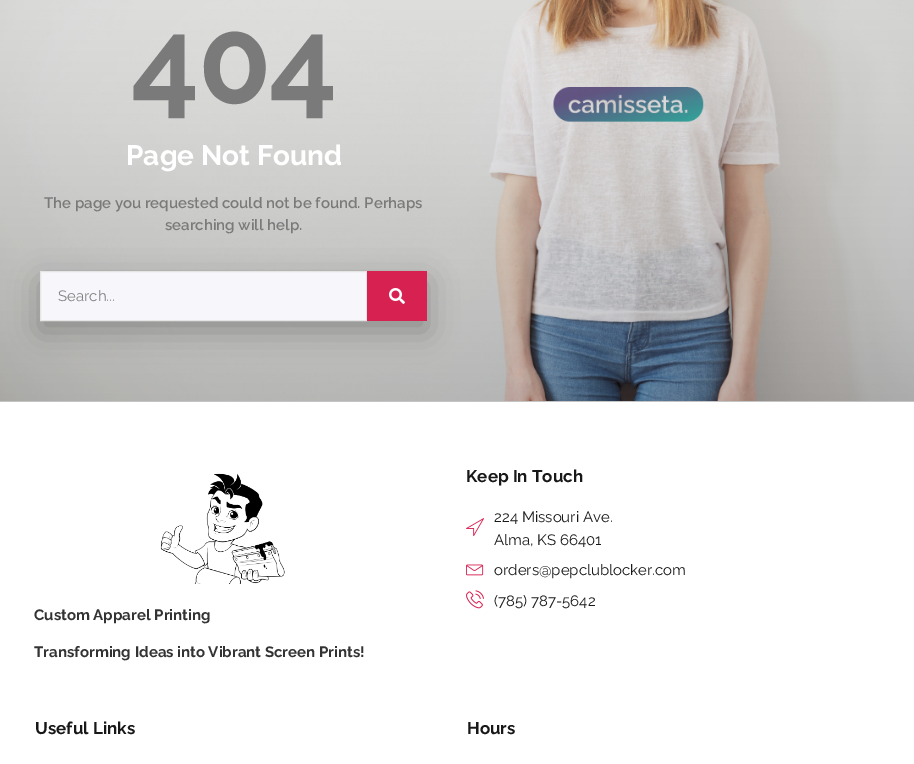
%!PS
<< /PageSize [914 764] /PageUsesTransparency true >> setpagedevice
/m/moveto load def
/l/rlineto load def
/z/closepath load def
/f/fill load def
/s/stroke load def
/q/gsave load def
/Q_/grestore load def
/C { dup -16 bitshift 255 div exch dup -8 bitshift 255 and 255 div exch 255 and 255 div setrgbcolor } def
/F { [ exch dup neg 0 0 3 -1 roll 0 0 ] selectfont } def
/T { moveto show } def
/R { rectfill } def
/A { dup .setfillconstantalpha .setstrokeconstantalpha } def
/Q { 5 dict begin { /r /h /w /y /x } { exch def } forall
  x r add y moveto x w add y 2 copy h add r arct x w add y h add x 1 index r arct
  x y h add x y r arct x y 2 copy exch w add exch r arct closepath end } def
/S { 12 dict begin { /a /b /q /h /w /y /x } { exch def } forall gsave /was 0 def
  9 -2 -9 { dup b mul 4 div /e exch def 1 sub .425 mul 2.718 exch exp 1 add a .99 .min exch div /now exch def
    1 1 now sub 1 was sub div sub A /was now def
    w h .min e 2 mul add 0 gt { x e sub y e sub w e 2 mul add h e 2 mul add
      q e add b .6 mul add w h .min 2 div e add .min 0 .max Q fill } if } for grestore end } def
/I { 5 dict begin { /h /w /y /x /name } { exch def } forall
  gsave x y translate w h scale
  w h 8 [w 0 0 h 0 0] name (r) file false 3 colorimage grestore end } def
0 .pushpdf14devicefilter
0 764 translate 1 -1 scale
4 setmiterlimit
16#FFFFFF C
0 0 914 764 R
(1.rgb) 0 0 914 401 I
/Raleway-Bold 120 F
16#7A7A7A C
131 103 m -2 0 (404) ashow
/Raleway-Bold 28 F
16#FFFFFF C
(Page Not Found) 126 165 T
/Raleway-SemiBold 15 F
16#7A7A7A C
(The page you requested could not be found. Perhaps) 44 208 T
(searching will help.) 165 230 T
16#000000 C
40 281 387 50 0 15 .25 S
16#F7F6FA C
40.5 271.5 m 326 0 l 0 49 l -326 0 l z q f Q_
16#E5E5E5 C
s
/Raleway-Regular 15 F
16#818183 C
(Search...) 58 301 T
16#D72151 C
367 271 60 50 R
(2.rgb) 389 288 16 16 I
16#C4C4C4 C
0 401 914 1 R
/Raleway-Bold 17 F
16#181818 C
(Keep In Touch) 466 482 T
(3.rgb) 466 518 18 19 I
/Raleway-Regular 15 F
(224 Missouri Ave.) 494 522 T
(Alma, KS 66401) 494 545 T
(4.rgb) 466 564 18 12 I
(orders@pepclublocker.com) 494 575 T
(5.rgb) 466 590 18 19 I
(\(785\) 787-5642) 494 606 T
(6.rgb) 160 473 125 111 I
/Raleway-Bold 15 F
16#333333 C
(Custom Apparel Printing) 34 620 T
(Transforming Ideas into Vibrant Screen Prints!) 34 657 T
/Raleway-Bold 17 F
16#181818 C
(Useful Links) 35 734 T
(Hours) 467 734 T
.poppdf14devicefilter showpage
